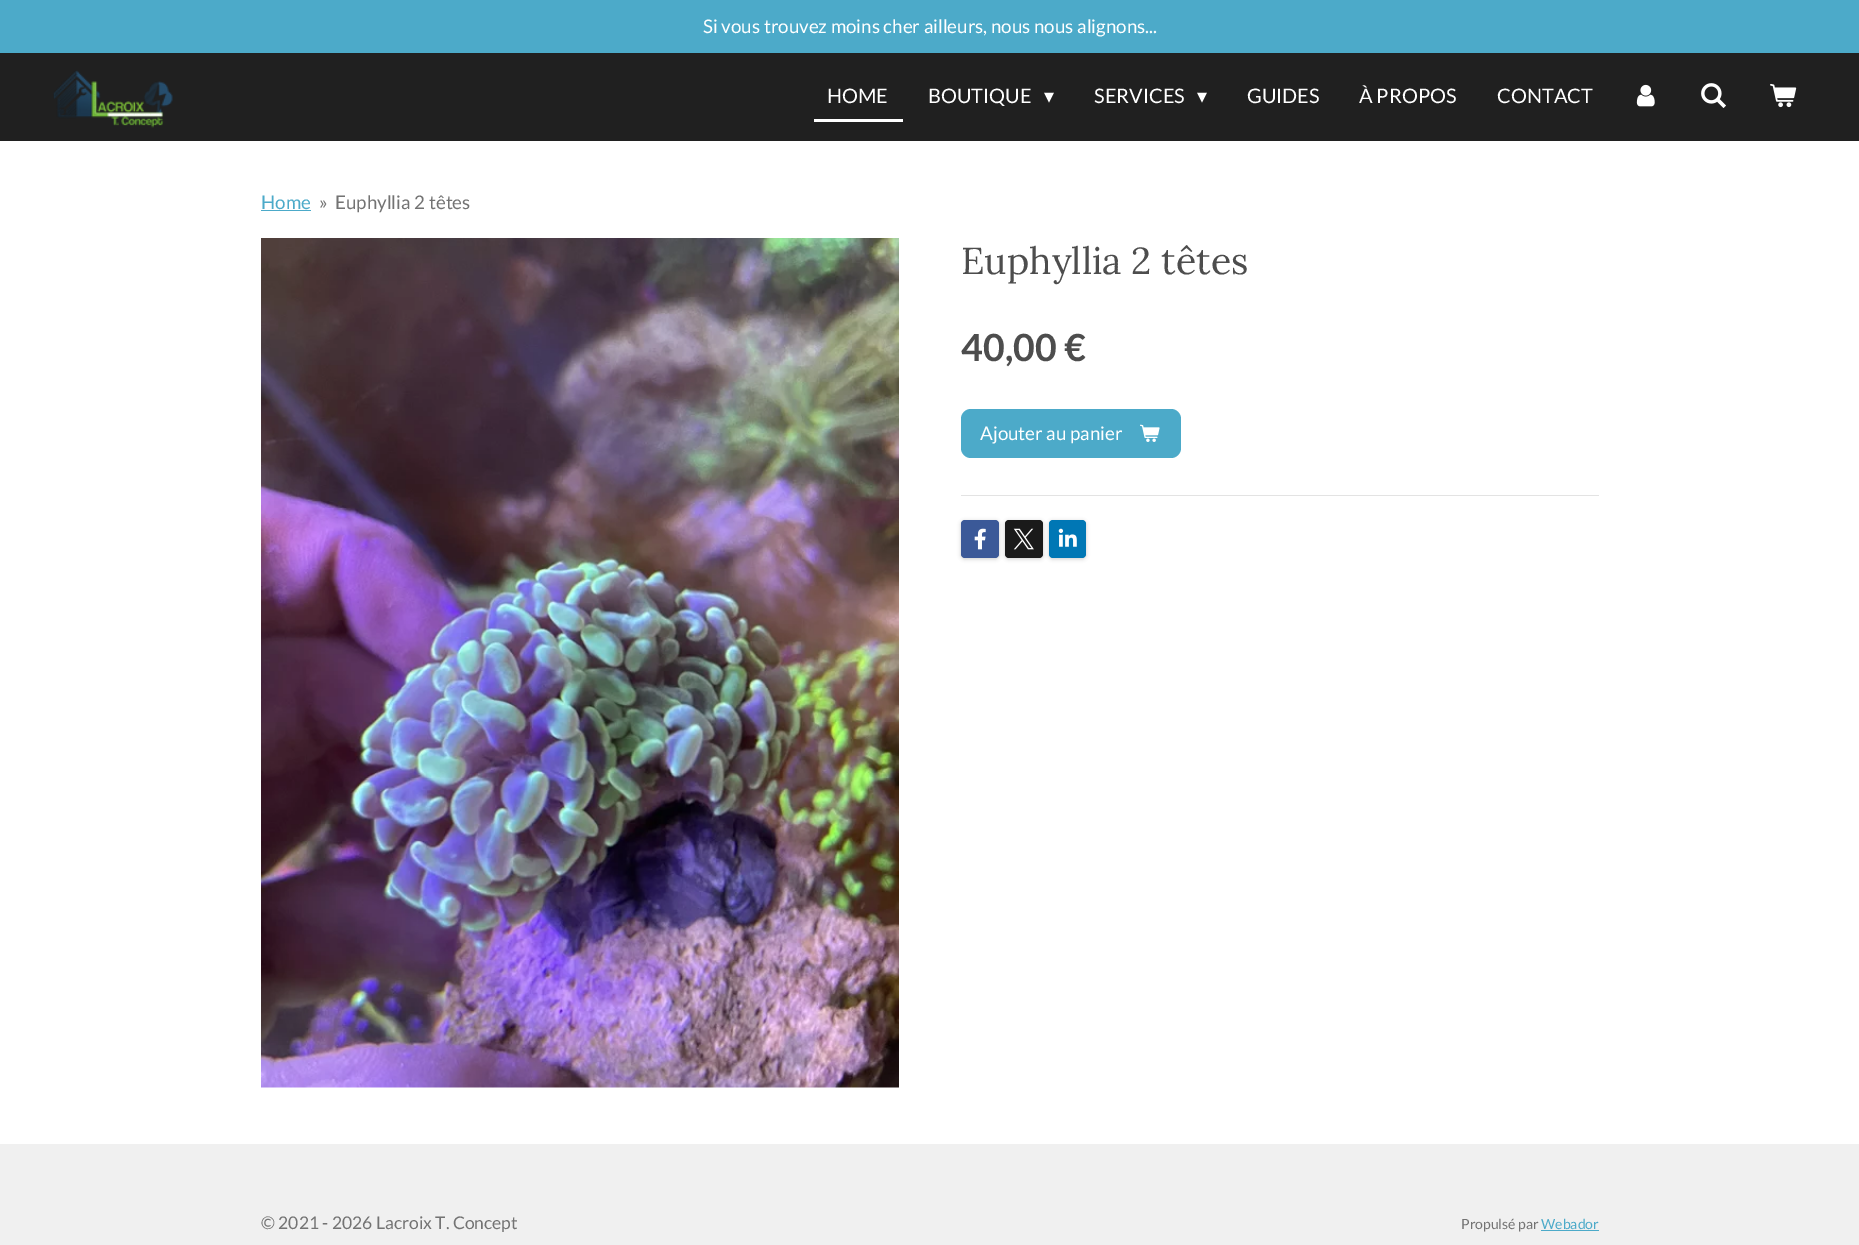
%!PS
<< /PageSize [1859 1245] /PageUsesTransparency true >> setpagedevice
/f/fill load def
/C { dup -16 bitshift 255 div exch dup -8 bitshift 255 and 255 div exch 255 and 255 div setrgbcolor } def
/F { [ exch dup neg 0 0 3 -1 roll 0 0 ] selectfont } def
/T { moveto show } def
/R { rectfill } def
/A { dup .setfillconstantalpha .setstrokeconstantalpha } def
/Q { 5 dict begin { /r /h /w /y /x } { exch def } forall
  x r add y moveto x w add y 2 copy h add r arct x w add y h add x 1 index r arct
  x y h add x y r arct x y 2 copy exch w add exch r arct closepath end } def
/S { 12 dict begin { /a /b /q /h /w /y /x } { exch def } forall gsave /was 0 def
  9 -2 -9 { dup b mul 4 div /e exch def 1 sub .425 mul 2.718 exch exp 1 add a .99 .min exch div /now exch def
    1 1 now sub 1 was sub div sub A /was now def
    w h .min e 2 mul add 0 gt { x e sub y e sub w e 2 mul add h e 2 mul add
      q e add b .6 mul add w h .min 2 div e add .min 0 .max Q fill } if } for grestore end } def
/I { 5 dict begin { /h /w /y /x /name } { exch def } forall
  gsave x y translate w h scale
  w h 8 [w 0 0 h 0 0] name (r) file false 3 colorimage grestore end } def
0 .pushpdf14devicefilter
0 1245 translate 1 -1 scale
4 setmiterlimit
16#FFFFFF C
0 0 1859 1245 R
16#202020 C
0 53 1859 88 R
16#4CAAC9 C
0 0 1859 53 R
/Lato-Regular 18.75 F
16#FFFFFF C
(Si vous trouvez moins cher ailleurs, nous nous alignons...) 703 33 T
(1.rgb) 53 70 120 58 I
814 119 89 3 R
/Lato-Regular 20 F
(HOME) 827 103 T
(BOUTIQUE) 928 103 T
/DejaVuSans-Regular 20 F
(▾) 1044 103 T
/Lato-Regular 20 F
(SERVICES) 1094 103 T
/DejaVuSans-Regular 20 F
(▾) 1197 103 T
/Lato-Regular 20 F
(GUIDES) 1247 103 T
(À PROPOS) 1359 103 T
(CONTACT) 1497 103 T
(2.rgb) 1636 84 19 23 I
(3.rgb) 1701 83 25 25 I
(4.rgb) 1770 83 27 25 I
/Lato-Regular 18.75 F
16#4CAAC9 C
(Home) 261 209 T
261 210 50 1 R
16#737373 C
(») 319 209 T
(Euphyllia 2 têtes) 335 209 T
(5.rgb) 261 238 638 850 I
/Lora-Regular 37.5 F
16#4D4D4D C
(Euphyllia 2 têtes) 961 274 T
/Lato-Bold 37.5 F
(40,00 €) 961 361 T
16#4CAAC9 C
961 409 220 49 10 Q f
/Lato-Regular 18.75 F
16#FFFFFF C
(Ajouter au panier) 980 440 T
(6.rgb) 1140 424 20 18 I
16#E3E3E3 C
961 495 638 1 R
16#000000 C
961 521 38 38 4 2 .2 S
16#3B5998 C
961 520 38 38 4 Q f
(7.rgb) 974 528 12 22 I
16#000000 C
1005 521 38 38 4 2 .2 S
16#1A1A1A C
1005 520 38 38 4 Q f
(8.rgb) 1013 528 21 22 I
16#000000 C
1049 521 37 38 4 2 .2 S
16#0077B5 C
1049 520 37 38 4 Q f
(9.rgb) 1058 528 19 19 I
16#F0F0F0 C
0 1144 1859 101 R
/Lato-Regular 17.5 F
16#737373 C
(© 2021 - 2026 Lacroix T. Concept) 261 1229 T
/Lato-Regular 14 F
(Propulsé par) 1461 1229 T
16#4CAAC9 C
1541 1230 58 1 R
(Webador) 1541 1229 T
.poppdf14devicefilter showpage
